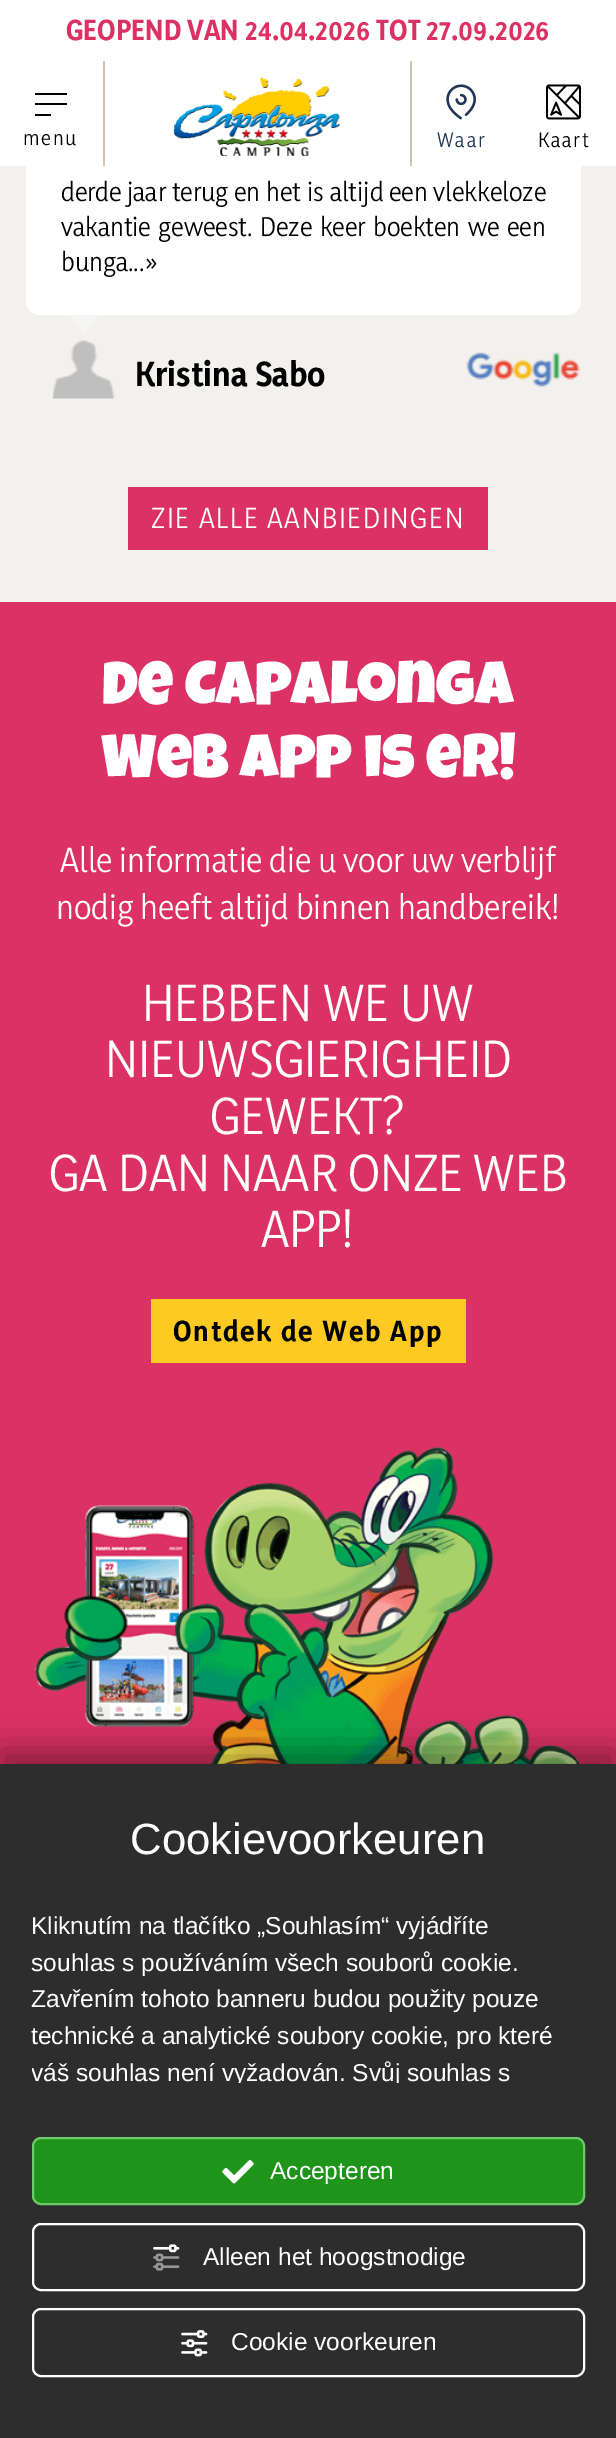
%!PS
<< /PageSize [616 2438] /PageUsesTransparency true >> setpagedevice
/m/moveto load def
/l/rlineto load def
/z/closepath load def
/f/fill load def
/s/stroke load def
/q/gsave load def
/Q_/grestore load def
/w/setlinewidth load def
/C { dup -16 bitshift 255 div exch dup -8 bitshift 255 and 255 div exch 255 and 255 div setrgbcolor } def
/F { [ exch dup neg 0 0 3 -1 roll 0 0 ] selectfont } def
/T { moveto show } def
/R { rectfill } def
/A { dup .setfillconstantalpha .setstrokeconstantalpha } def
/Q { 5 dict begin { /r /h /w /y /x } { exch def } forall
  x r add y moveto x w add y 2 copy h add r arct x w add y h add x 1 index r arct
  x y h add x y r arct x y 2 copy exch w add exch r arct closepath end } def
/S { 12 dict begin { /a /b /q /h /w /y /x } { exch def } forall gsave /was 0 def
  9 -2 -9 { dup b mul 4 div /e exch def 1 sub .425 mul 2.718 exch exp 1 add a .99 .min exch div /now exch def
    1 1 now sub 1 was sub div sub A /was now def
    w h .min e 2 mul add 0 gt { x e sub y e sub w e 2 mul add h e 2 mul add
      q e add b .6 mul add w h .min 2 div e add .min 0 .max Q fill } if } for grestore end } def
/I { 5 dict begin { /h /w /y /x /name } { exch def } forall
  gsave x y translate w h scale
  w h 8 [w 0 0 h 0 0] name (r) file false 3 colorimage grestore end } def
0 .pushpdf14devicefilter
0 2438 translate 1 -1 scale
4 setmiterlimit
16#F3F1ED C
0 0 616 2438 R
16#FFFFFF C
26 105 555 210 14 Q f
0 0 616 166 R
/Yaldevi-Bold 26.25 F
16#DC3164 C
(GEOPEND VAN 24.04.2026 TOT 27.09.2026) 66 40 T
16#000000 C
35 93 32 2 R
35 103 32 2 R
35 114 16 2 R
/Yaldevi-Regular 19 F
23 145 m 1.75 0 (menu) ashow
16#CFC3AC C
410 61 2 105 R
103 61 2 105 R
(1.rgb) 173 77 167 79 I
(2.rgb) 446 84 30 36 I
16#213556 C
437 147 m 1.75 0 (Waar) ashow
(3.rgb) 546 84 35 36 I
16#000000 C
538 147 m 1.75 0 (Kaart) ashow
/Yaldevi-Regular 24.5 F
61 201 m .25 0 32 (derde jaar terug en het is altijd een vlekkeloze) widthshow
61 236 m 2 0 32 (vakantie geweest. Deze keer boekten we een) widthshow
(bunga...») 61 271 T
16#F5F5F5 C
70 315 m 28 0 l -14 21 l z f
(4.rgb) 53 340 62 59 I
/Yaldevi-Bold 31.5 F
16#000000 C
(Kristina Sabo) 135 386 T
(5.rgb) 466 352 115 35 I
16#DC3164 C
128 487 360 63 R
/Yaldevi-Regular 26.25 F
16#FFFFFF C
151 528 m 1.75 0 (ZIE ALLE AANBIEDINGEN) ashow
16#DC3164 C
0 602 616 1162 R
/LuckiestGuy-Regular 61.25 F
16#FFFFFF C
(De Capalonga) 102 704 T
(Web App is er!) 101 777 T
/Yaldevi-Regular 31.5 F
(Alle informatie die u voor uw verblijf) 60 872 T
(nodig heeft altijd binnen handbereik!) 56 919 T
/Yaldevi-Regular 47.25 F
(HEBBEN WE UW) 142 1021 T
(NIEUWSGIERIGHEID) 105 1077 T
(GEWEKT?) 210 1134 T
(GA DAN NAAR ONZE WEB) 49 1191 T
(APP!) 261 1247 T
16#FCCA23 C
151 1299 315 64 R
/Yaldevi-Bold 26.25 F
16#000000 C
173 1341 m 1.75 0 (Ontdek de Web App) ashow
(6.rgb) 35 1446 545 318 I
0 1750 616 676 0 17.5 .38 S
16#2D2D2D C
0 1764 616 674 R
/LiberationSans-Regular 43.75 F
16#FFFFFF C
(Cookievoorkeuren) 130 1854 T
/LiberationSans-Regular 24.5 F
(Kliknutím na tlačítko „Souhlasím“ vyjádříte) 31 1934 T
(souhlas s používáním všech souborů cookie.) 31 1971 T
(Zavřením tohoto banneru budou použity pouze) 31 2007 T
(technické a analytické soubory cookie, pro které) 31 2044 T
q
32 1908 553 175 rectclip
(váš souhlas není vyžadován. Svůj souhlas s) 31 2081 T
Q_
16#1E941A C
33 2138 551 66 8 Q q f Q_
16#6CCA69 C
2 w
s
(7.rgb) 222 2160 32 24 I
16#FFFFFF C
(Accepteren) 270 2179 T
33 2224 551 66 8 Q s
(8.rgb) 153 2244 27 27 I
(Alleen het hoogstnodige) 203 2265 T
33 2309 551 67 8 Q s
(9.rgb) 181 2330 27 27 I
(Cookie voorkeuren) 231 2350 T
.poppdf14devicefilter showpage
